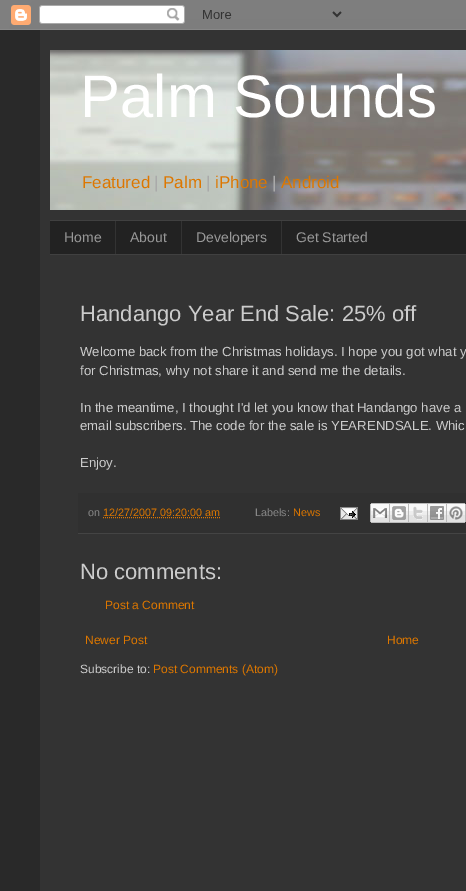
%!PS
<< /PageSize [466 891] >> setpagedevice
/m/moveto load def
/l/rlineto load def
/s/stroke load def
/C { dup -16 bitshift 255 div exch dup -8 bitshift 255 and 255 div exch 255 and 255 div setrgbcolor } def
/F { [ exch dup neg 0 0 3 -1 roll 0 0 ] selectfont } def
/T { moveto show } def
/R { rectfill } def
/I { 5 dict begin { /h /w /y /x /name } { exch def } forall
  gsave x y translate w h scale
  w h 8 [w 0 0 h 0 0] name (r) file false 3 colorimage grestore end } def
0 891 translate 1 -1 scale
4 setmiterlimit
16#292929 C
0 0 466 891 R
(1.rgb) 0 0 466 30 I
16#333333 C
40 30 426 861 R
(2.rgb) 50 50 416 160 I
/LiberationSans-Regular 60 F
16#FFFFFF C
(Palm Sounds) 80 117 T
/LiberationSans-Regular 17 F
16#DD7700 C
(Featured) 82 188 T
16#AAAAAA C
(|) 154 188 T
16#DD7700 C
(Palm) 163 188 T
16#AAAAAA C
(|) 206 188 T
16#DD7700 C
(iPhone) 215 188 T
16#AAAAAA C
(|) 272 188 T
16#DD7700 C
(Android) 281 188 T
16#222222 C
50 221 416 33 R
16#404040 C
50 220 416 1 R
50 254 416 1 R
/LiberationSans-Regular 14 F
16#999999 C
(Home) 64 242 T
16#333333 C
115 221 1 33 R
16#999999 C
(About) 130 242 T
16#333333 C
181 221 1 33 R
16#999999 C
(Developers) 196 242 T
16#333333 C
281 221 1 33 R
16#999999 C
(Get Started) 296 242 T
/LiberationSans-Regular 22 F
16#CCCCCC C
(Handango Year End Sale: 25% off) 80 321 T
/LiberationSans-Regular 13.2 F
(Welcome back from the Christmas holidays. I hope you got what y) 80 356 T
(for Christmas, why not share it and send me the details.) 80 375 T
(In the meantime, I thought I'd let you know that Handango have a) 80 412 T
(email subscribers. The code for the sale is YEARENDSALE. Whic) 80 430 T
(Enjoy.) 80 467 T
16#303030 C
78 493 388 40 R
16#444444 C
78 533 388 1 R
/LiberationSans-Regular 10.75 F
16#888888 C
(on) 88 516 T
16#DD7700 C
(12/27/2007 09:20:00 am) 103 516 T
[1 1] 0 setdash
103 517.5 m 117 0 l s
16#888888 C
(Labels:) 255 516 T
16#DD7700 C
(News) 293 516 T
(3.rgb) 340 507 18 13 I
(4.rgb) 370 503 20 20 I
(5.rgb) 390 503 19 20 I
(6.rgb) 409 503 19 20 I
(7.rgb) 428 503 19 20 I
(8.rgb) 447 503 19 20 I
/LiberationSans-Regular 22 F
16#CCCCCC C
(No comments:) 80 579 T
/LiberationSans-Regular 12 F
16#DD7700 C
(Post a Comment) 105 609 T
(Newer Post) 85 644 T
(Home) 387 644 T
16#CCCCCC C
(Subscribe to:) 80 673 T
16#DD7700 C
(Post Comments \(Atom\)) 153 673 T
showpage
